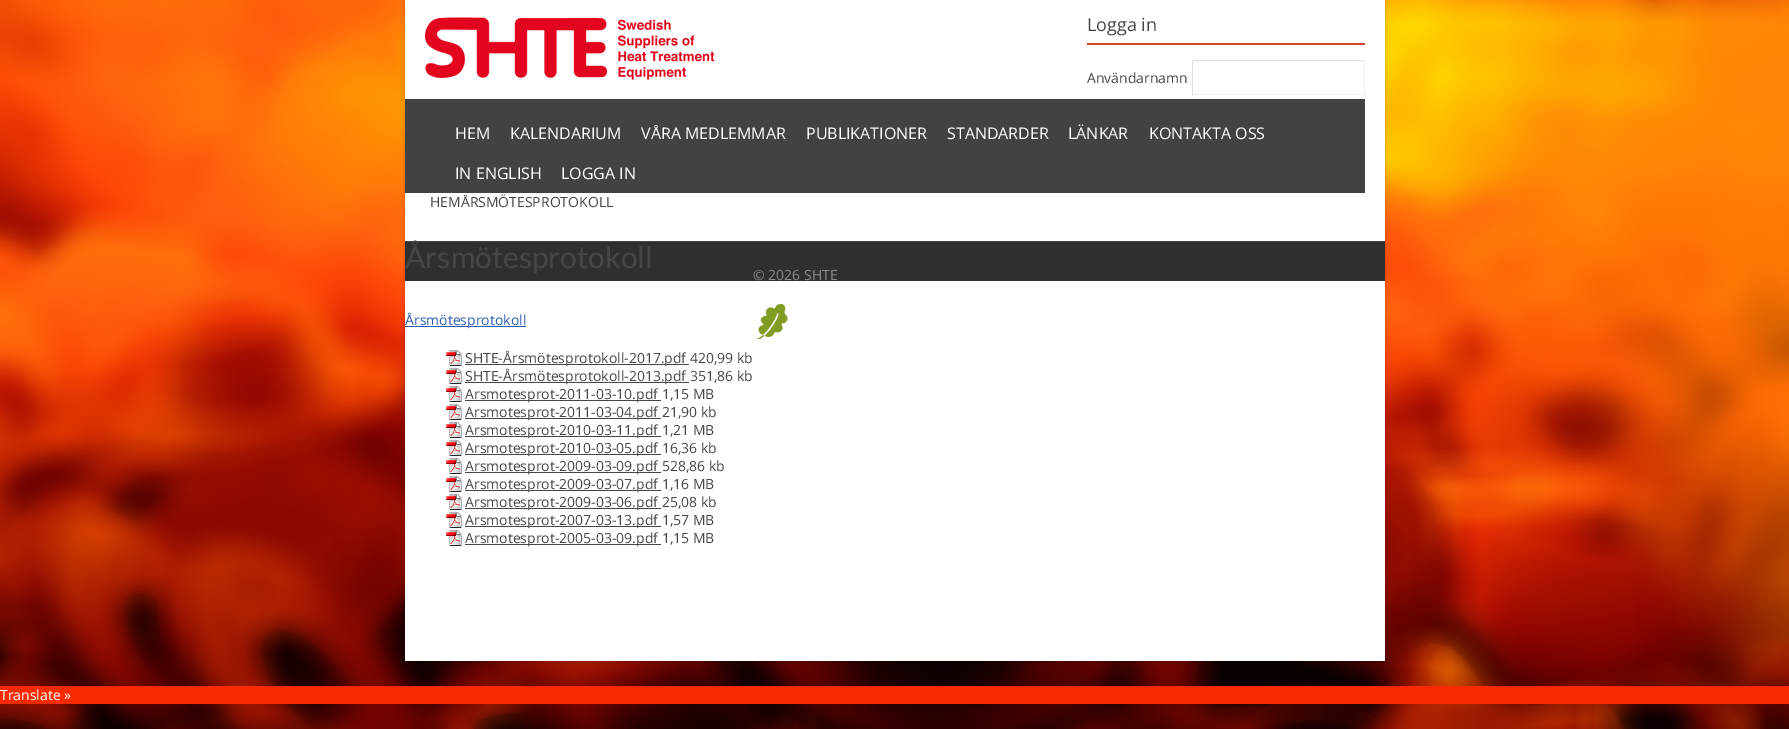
%!PS
<< /PageSize [1789 729] /PageUsesTransparency true >> setpagedevice
/C { dup -16 bitshift 255 div exch dup -8 bitshift 255 and 255 div exch 255 and 255 div setrgbcolor } def
/F { [ exch dup neg 0 0 3 -1 roll 0 0 ] selectfont } def
/T { moveto show } def
/R { rectfill } def
/A { dup .setfillconstantalpha .setstrokeconstantalpha } def
/Q { 5 dict begin { /r /h /w /y /x } { exch def } forall
  x r add y moveto x w add y 2 copy h add r arct x w add y h add x 1 index r arct
  x y h add x y r arct x y 2 copy exch w add exch r arct closepath end } def
/S { 12 dict begin { /a /b /q /h /w /y /x } { exch def } forall gsave /was 0 def
  9 -2 -9 { dup b mul 4 div /e exch def 1 sub .425 mul 2.718 exch exp 1 add a .99 .min exch div /now exch def
    1 1 now sub 1 was sub div sub A /was now def
    w h .min e 2 mul add 0 gt { x e sub y e sub w e 2 mul add h e 2 mul add
      q e add b .6 mul add w h .min 2 div e add .min 0 .max Q fill } if } for grestore end } def
/I { 5 dict begin { /h /w /y /x /name } { exch def } forall
  gsave x y translate w h scale
  w h 8 [w 0 0 h 0 0] name (r) file false 3 colorimage grestore end } def
0 .pushpdf14devicefilter
0 729 translate 1 -1 scale
4 setmiterlimit
16#FFFFFF C
0 0 1789 729 R
(1.rgb) 0 0 1789 729 I
16#000000 C
405 1 980 661 0 1.5 .2 S
16#FFFFFF C
405 0 980 661 R
(2.rgb) 424 17 291 63 I
16#D34637 C
1087 43 278 2 R
/OpenSans-Regular 18 F
16#464646 C
(Logga in) 1087 31 T
/OpenSans-Regular 14 F
(Användarnamn) 1087 83 T
16#DFDFDF C
1192 60 173 1 R
16#EFEFEF C
1364 60 1 35 R
1192 94 173 1 R
16#DFDFDF C
1192 60 1 35 R
16#424242 C
405 99 960 94 R
/OpenSans-Regular 16 F
16#FFFFFF C
(HEM) 455 139 T
(KALENDARIUM) 510 139 T
(VÅRA MEDLEMMAR) 641 139 T
(PUBLIKATIONER) 806 139 T
(STANDARDER) 947 139 T
(LÄNKAR) 1068 139 T
(KONTAKTA OSS) 1149 139 T
(IN ENGLISH) 455 179 T
(LOGGA IN) 561 179 T
/OpenSans-Regular 14 F
16#464646 C
(HEMÅRSMÖTESPROTOKOLL) 430 207 T
16#2F2F2F C
405 242 980 39 R
16#464646 C
405 241 980 1 R
/Lato-Regular 30 F
(Årsmötesprotokoll) 405 268 T
16#2A5DB0 C
405 326 121 1 R
/OpenSans-Regular 14 F
(Årsmötesprotokoll) 405 325 T
(3.rgb) 446 350 16 16 I
16#464646 C
465 364 224 1 R
(SHTE-Årsmötesprotokoll-2017.pdf 420,99 kb) 465 363 T
(3.rgb) 446 368 16 16 I
465 382 224 1 R
(SHTE-Årsmötesprotokoll-2013.pdf 351,86 kb) 465 381 T
(3.rgb) 446 386 16 16 I
465 400 196 1 R
(Arsmotesprot-2011-03-10.pdf 1,15 MB) 465 399 T
(3.rgb) 446 404 16 16 I
465 418 196 1 R
(Arsmotesprot-2011-03-04.pdf 21,90 kb) 465 417 T
(3.rgb) 446 422 16 16 I
465 436 196 1 R
(Arsmotesprot-2010-03-11.pdf 1,21 MB) 465 435 T
(3.rgb) 446 440 16 16 I
465 454 196 1 R
(Arsmotesprot-2010-03-05.pdf 16,36 kb) 465 453 T
(3.rgb) 446 458 16 16 I
465 472 196 1 R
(Arsmotesprot-2009-03-09.pdf 528,86 kb) 465 471 T
(3.rgb) 446 476 16 16 I
465 490 196 1 R
(Arsmotesprot-2009-03-07.pdf 1,16 MB) 465 489 T
(3.rgb) 446 494 16 16 I
465 508 196 1 R
(Arsmotesprot-2009-03-06.pdf 25,08 kb) 465 507 T
(3.rgb) 446 512 16 16 I
465 526 196 1 R
(Arsmotesprot-2007-03-13.pdf 1,57 MB) 465 525 T
(3.rgb) 446 530 16 16 I
465 544 196 1 R
(Arsmotesprot-2005-03-09.pdf 1,15 MB) 465 543 T
16#8C8C8C C
(© 2026 SHTE) 753 280 T
(4.rgb) 754 304 34 35 I
16#F92904 C
0 686 1789 18 R
16#FFFFFF C
(Translate ») 0 700 T
.poppdf14devicefilter showpage
